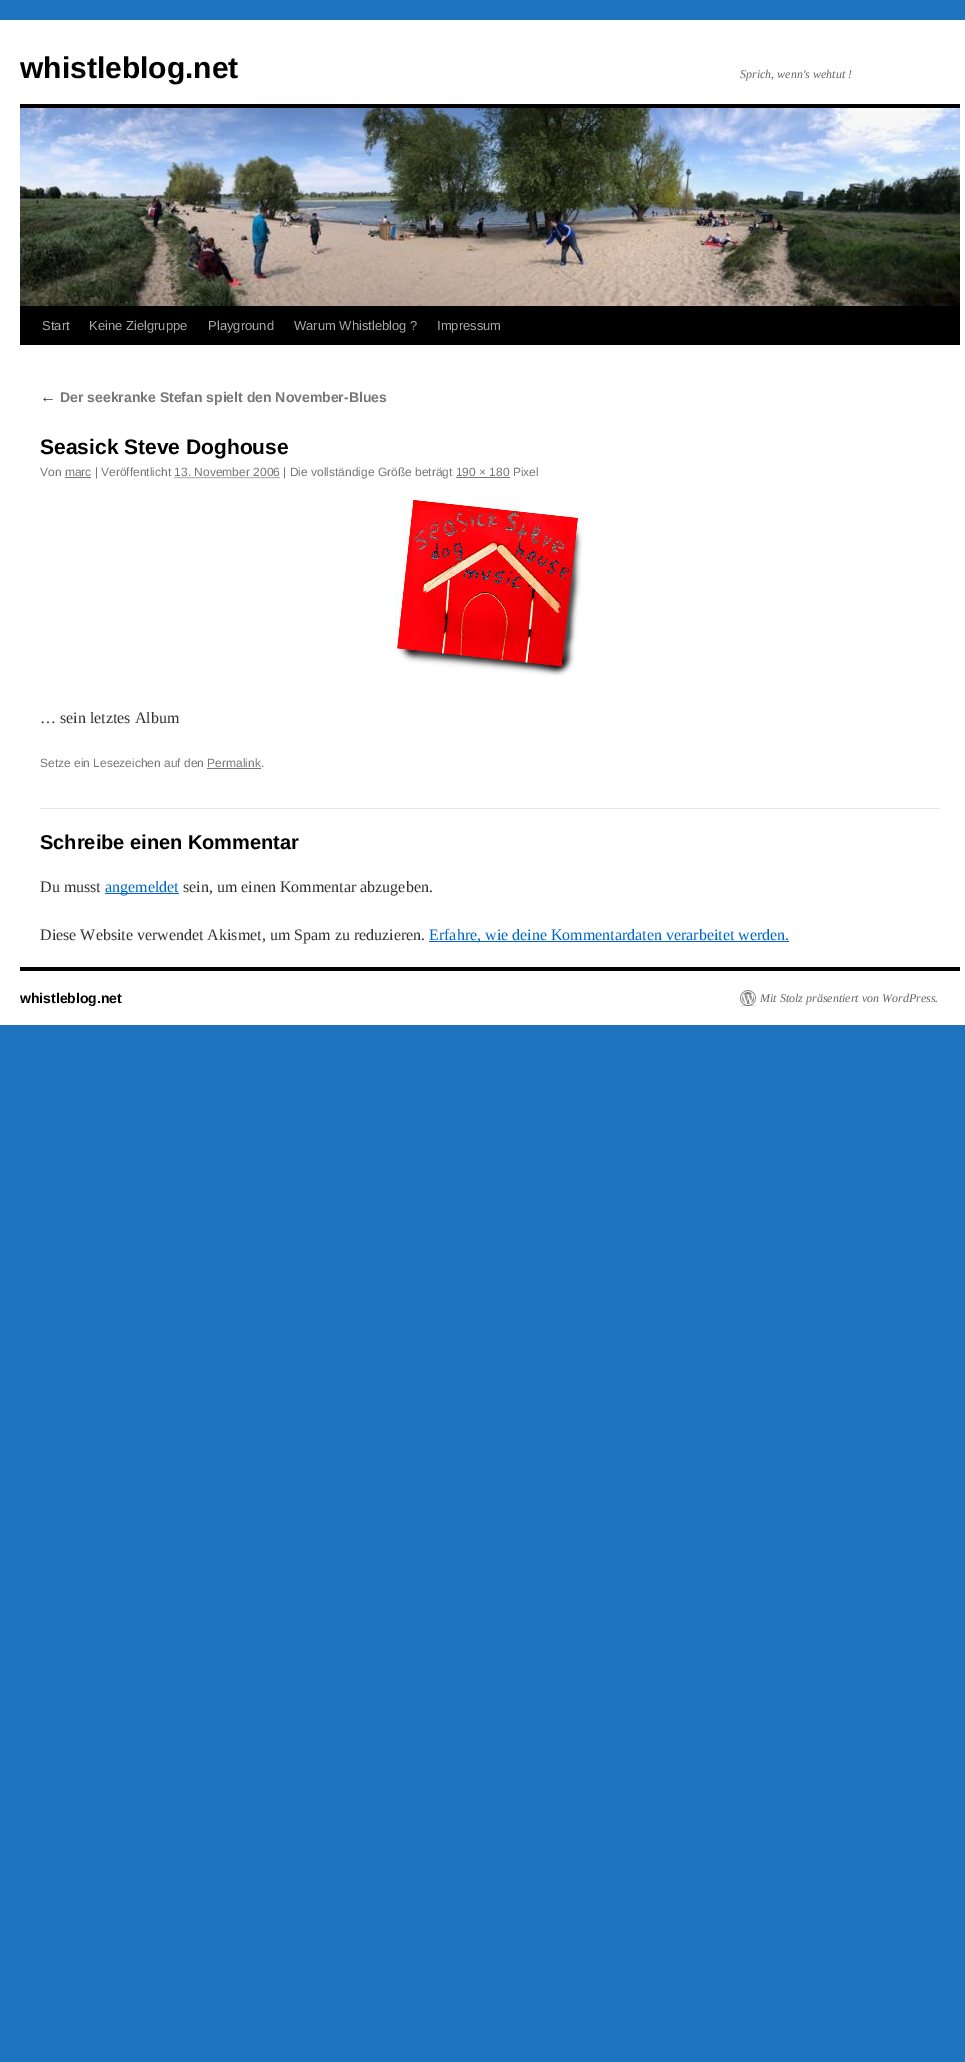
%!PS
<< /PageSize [965 2062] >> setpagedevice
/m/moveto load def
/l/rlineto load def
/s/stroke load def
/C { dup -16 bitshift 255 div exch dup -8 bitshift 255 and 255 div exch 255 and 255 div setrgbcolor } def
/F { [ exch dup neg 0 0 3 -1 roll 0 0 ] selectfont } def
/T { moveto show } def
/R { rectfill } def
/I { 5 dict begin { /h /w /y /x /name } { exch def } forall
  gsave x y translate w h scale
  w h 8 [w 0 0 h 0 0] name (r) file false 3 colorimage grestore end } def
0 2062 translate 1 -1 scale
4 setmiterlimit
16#1E73BE C
0 0 965 2062 R
16#FFFFFF C
0 20 965 1005 R
/LiberationSans-Bold 30 F
16#000000 C
(whistleblog.net) 20 78 T
/LiberationSerif-Italic 12 F
16#666666 C
(Sprich, wenn's wehtut !) 740 78 T
16#000000 C
20 104 940 4 R
20 306 940 39 R
(1.rgb) 20 108 940 198 I
/LiberationSans-Regular 13 F
16#AAAAAA C
(Start) 42 330 T
(Keine Zielgruppe) 89 330 T
(Playground) 208 330 T
(Warum Whistleblog ?) 294 330 T
(Impressum) 437 330 T
/LiberationSerif-Italic 16 F
16#333333 C
(←) 40 402 T
/LiberationSans-Bold 14 F
16#777777 C
(Der seekranke Stefan spielt den November-Blues) 60 402 T
/LiberationSans-Bold 21 F
16#000000 C
(Seasick Steve Doghouse) 40 454 T
/LiberationSans-Regular 12 F
16#777777 C
(Von marc | Veröffentlicht 13. November 2006 | Die vollständige Größe beträgt 190 × 180 Pixel) 40 476 T
65 477 26 1 R
[1 1] 0 setdash
174.5 477.5 m 105.5 0 l s
456 477 54 1 R
(2.rgb) 395 496 188 180 I
/LiberationSerif-Regular 16 F
16#333333 C
(… sein letztes Album) 40 723 T
/LiberationSans-Regular 12 F
16#777777 C
(Setze ein Lesezeichen auf den Permalink.) 40 767 T
207 768 54 1 R
16#E7E7E7 C
40 808 900 1 R
/LiberationSans-Bold 20 F
16#000000 C
(Schreibe einen Kommentar) 40 849 T
/LiberationSerif-Regular 16 F
16#333333 C
(Du musst) 40 892 T
16#0066CC C
105 893 74 1 R
(angemeldet) 105 892 T
16#333333 C
(sein, um einen Kommentar abzugeben.) 183 892 T
(Diese Website verwendet Akismet, um Spam zu reduzieren.) 40 940 T
16#0066CC C
429 941 360 1 R
(Erfahre, wie deine Kommentardaten verarbeitet werden.) 429 940 T
16#000000 C
20 967 940 4 R
/LiberationSans-Bold 14 F
(whistleblog.net) 20 1003 T
(3.rgb) 740 990 16 16 I
/LiberationSerif-Italic 12 F
16#666666 C
(Mit Stolz präsentiert von WordPress.) 760 1002 T
showpage
